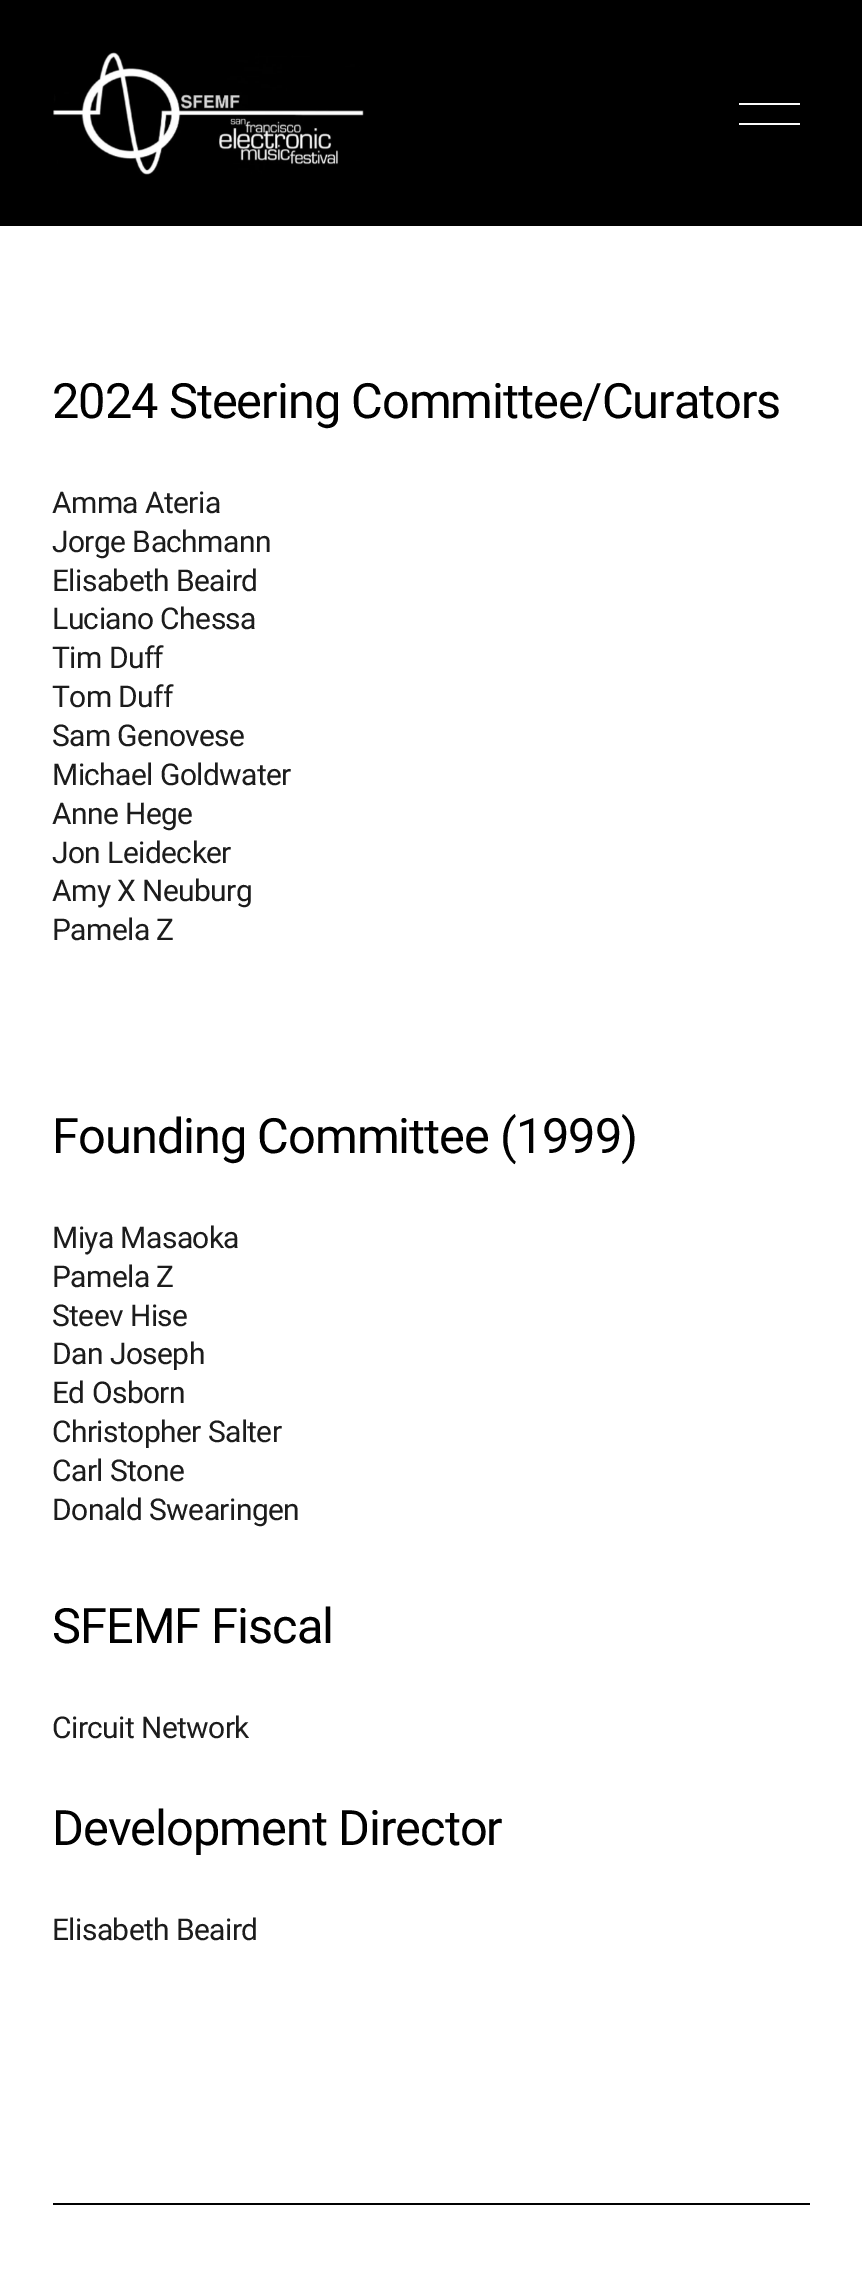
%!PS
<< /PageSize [862 2269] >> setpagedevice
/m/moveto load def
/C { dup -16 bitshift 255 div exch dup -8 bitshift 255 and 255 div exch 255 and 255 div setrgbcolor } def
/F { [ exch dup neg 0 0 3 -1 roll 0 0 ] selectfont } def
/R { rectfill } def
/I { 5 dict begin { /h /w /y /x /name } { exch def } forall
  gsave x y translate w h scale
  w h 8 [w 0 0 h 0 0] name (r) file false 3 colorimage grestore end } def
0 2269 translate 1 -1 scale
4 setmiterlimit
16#FFFFFF C
0 0 862 2269 R
16#000000 C
0 0 862 226 R
(1.rgb) 53 52 311 123 I
16#FAFAFA C
739 103 61 2 R
739 123 61 2 R
/Roboto-Regular 48.75 F
16#000000 C
52 418 m -1 0 (2024 Steering Committee/Curators) ashow
/Roboto-Regular 30 F
16#1C1C1C C
52 513 m -.6 0 (Amma Ateria) ashow
52 552 m -.6 0 (Jorge Bachmann) ashow
52 591 m -.6 0 (Elisabeth Beaird) ashow
52 629 m -.6 0 (Luciano Chessa) ashow
52 668 m -.6 0 (Tim Duff) ashow
52 707 m -.6 0 (Tom Duff) ashow
52 746 m -.6 0 (Sam Genovese) ashow
52 785 m -.6 0 (Michael Goldwater) ashow
52 824 m -.6 0 (Anne Hege) ashow
52 863 m -.6 0 (Jon Leidecker) ashow
52 901 m -.6 0 (Amy X Neuburg) ashow
52 940 m -.6 0 (Pamela Z) ashow
/Roboto-Regular 48.75 F
16#000000 C
52 1153 m -1 0 (Founding Committee \(1999\)) ashow
/Roboto-Regular 30 F
16#1C1C1C C
52 1248 m -.6 0 (Miya Masaoka) ashow
52 1287 m -.6 0 (Pamela Z) ashow
52 1326 m -.6 0 (Steev Hise) ashow
52 1364 m -.6 0 (Dan Joseph) ashow
52 1403 m -.6 0 (Ed Osborn) ashow
52 1442 m -.6 0 (Christopher Salter) ashow
52 1481 m -.6 0 (Carl Stone) ashow
52 1520 m -.6 0 (Donald Swearingen) ashow
/Roboto-Regular 48.75 F
16#000000 C
52 1643 m -1 0 (SFEMF Fiscal) ashow
/Roboto-Regular 30 F
16#1C1C1C C
52 1738 m -.6 0 (Circuit Network) ashow
/Roboto-Regular 48.75 F
16#000000 C
52 1845 m -1 0 (Development Director) ashow
/Roboto-Regular 30 F
16#1C1C1C C
52 1940 m -.6 0 (Elisabeth Beaird) ashow
16#000000 C
53 2203 757 2 R
showpage
